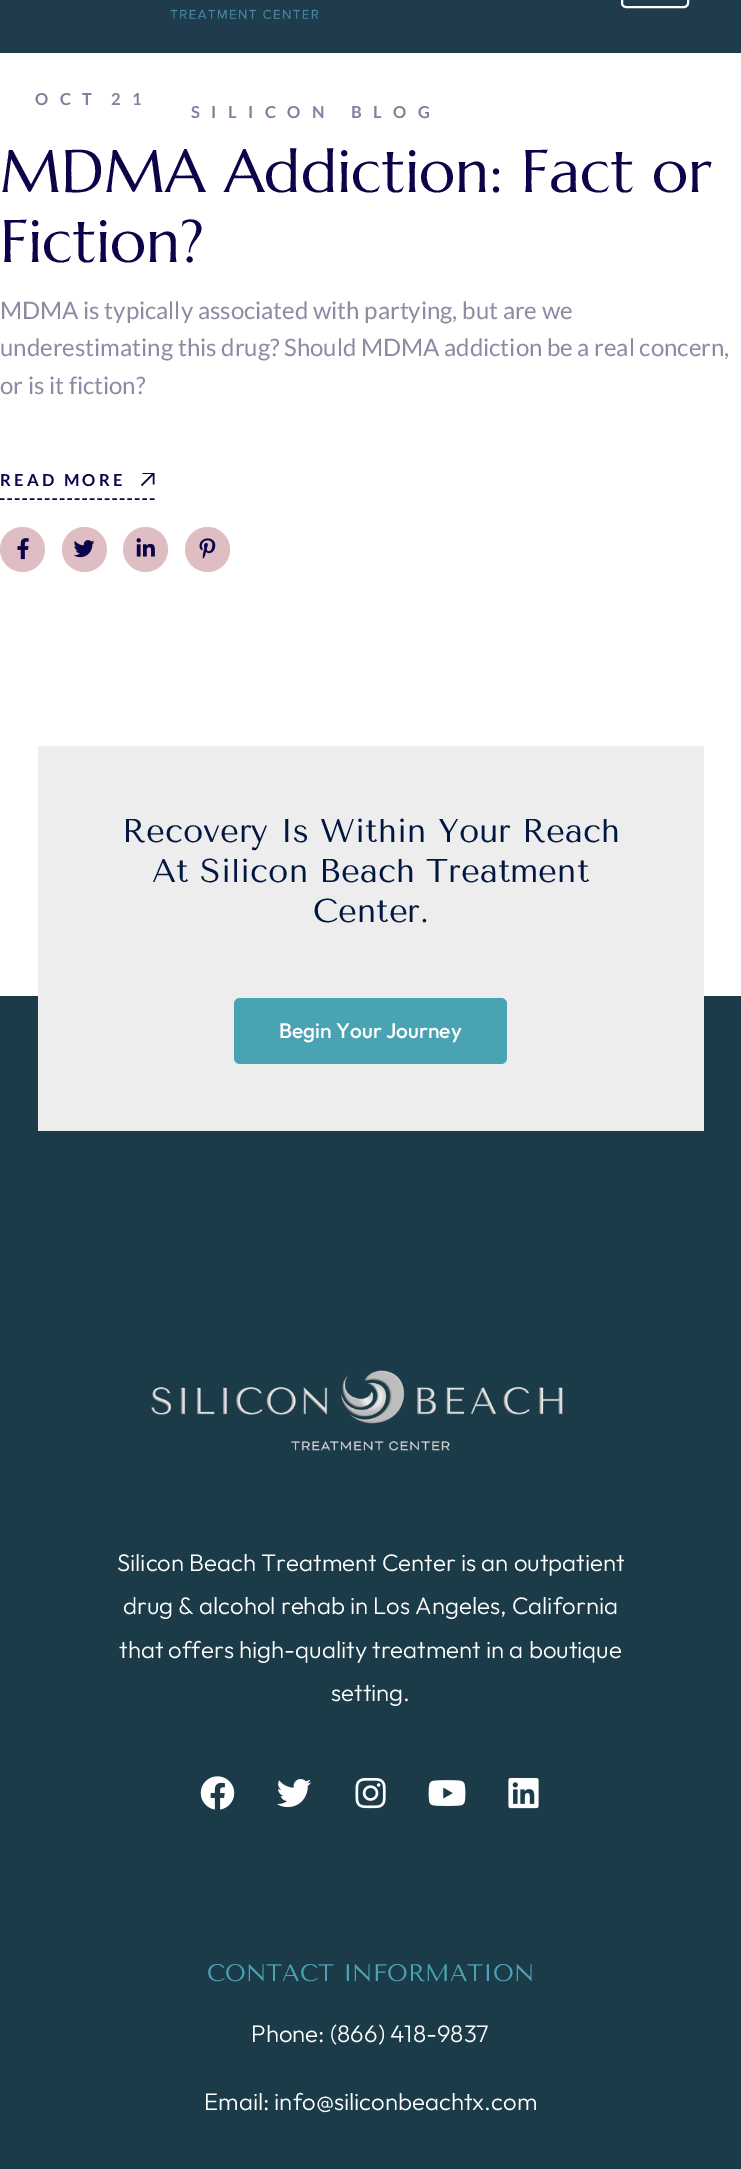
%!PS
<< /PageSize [741 2169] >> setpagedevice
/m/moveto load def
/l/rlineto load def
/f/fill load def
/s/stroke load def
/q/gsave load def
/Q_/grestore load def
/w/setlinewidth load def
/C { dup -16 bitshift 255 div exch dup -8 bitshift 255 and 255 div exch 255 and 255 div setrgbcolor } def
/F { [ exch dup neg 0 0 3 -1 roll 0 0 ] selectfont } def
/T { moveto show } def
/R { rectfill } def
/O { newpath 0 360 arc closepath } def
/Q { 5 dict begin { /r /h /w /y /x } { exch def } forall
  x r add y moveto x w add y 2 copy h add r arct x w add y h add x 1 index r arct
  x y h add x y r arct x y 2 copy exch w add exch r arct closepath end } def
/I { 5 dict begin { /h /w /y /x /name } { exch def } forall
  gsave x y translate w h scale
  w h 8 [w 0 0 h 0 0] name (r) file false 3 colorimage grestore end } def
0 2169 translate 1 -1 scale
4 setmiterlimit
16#FFFFFF C
0 0 741 2169 R
16#203C4C C
0 0 741 53 R
16#FFFFFF C
2 w
622 -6 66 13 4 Q s
(1.rgb) 170 9 149 10 I
/Lato-Bold 16.5 F
16#847E9F C
35 105 m 11.5 0 (OCT) ashow
111 105 m 11.5 0 (21) ashow
191 118 m 11.5 0 (SILICON BLOG) ashow
/Marcellus-Regular 60 F
16#0B0449 C
(MDMA Addiction: Fact or) 0 192 T
(Fiction?) 0 262 T
/Lato-Regular 24 F
16#8C8BA4 C
(MDMA is typically associated with partying, but are we) 0 319 T
(underestimating this drug? Should MDMA addiction be a real concern,) 0 356 T
(or is it fiction?) 0 394 T
16#0B0449 C
1.5 w
[4.5 3] 0 setdash
0 499 m 154.5 0 l s
/Lato-Bold 16.5 F
0 486 m 3.25 0 (READ MORE) ashow
q
141 473 14 13 rectclip
[] 0 setdash
153.5 484.5 m 0 -11.5 l -11 0 l s
Q_
[] 0 setdash
153.5 473.5 m -12 12 l s
16#DFBEC3 C
22.5 549.5 22.5 O f
(2.rgb) 17 538 12 22 I
84.5 549.5 22.5 O f
(3.rgb) 73 540 22 18 I
145.5 549.5 22.5 O f
(4.rgb) 136 538 19 19 I
207.5 549.5 22.5 O f
(5.rgb) 199 538 17 21 I
16#1C3B48 C
0 996 741 1173 R
16#EDEDED C
38 746 666 385 R
/TenorSans-Regular 33 F
16#011640 C
(Recovery Is Within Your Reach) 122 842 T
(At Silicon Beach Treatment) 152 882 T
(Center.) 313 922 T
16#49A3B3 C
234 998 273 66 6 Q f
/Outfit-Medium 21 F
16#FFFFFF C
(Begin Your Journey) 279 1038 T
(6.rgb) 151 1370 412 81 I
/Outfit-Light 24 F
(Silicon Beach Treatment Center is an outpatient) 117 1571 T
(drug & alcohol rehab in Los Angeles, California) 123 1614 T
(that offers high-quality treatment in a boutique) 119 1658 T
(setting.) 331 1701 T
(7.rgb) 200 1776 35 34 I
(8.rgb) 277 1779 35 29 I
(9.rgb) 355 1778 31 31 I
(10.rgb) 428 1780 38 26 I
(11.rgb) 508 1778 31 31 I
/TenorSans-Regular 24 F
16#49A3B3 C
(CONTACT INFORMATION) 207 1981 T
/Outfit-Light 24 F
16#FFFFFF C
(Phone: \(866\) 418-9837) 251 2042 T
(Email: info@siliconbeachtx.com) 204 2110 T
showpage
